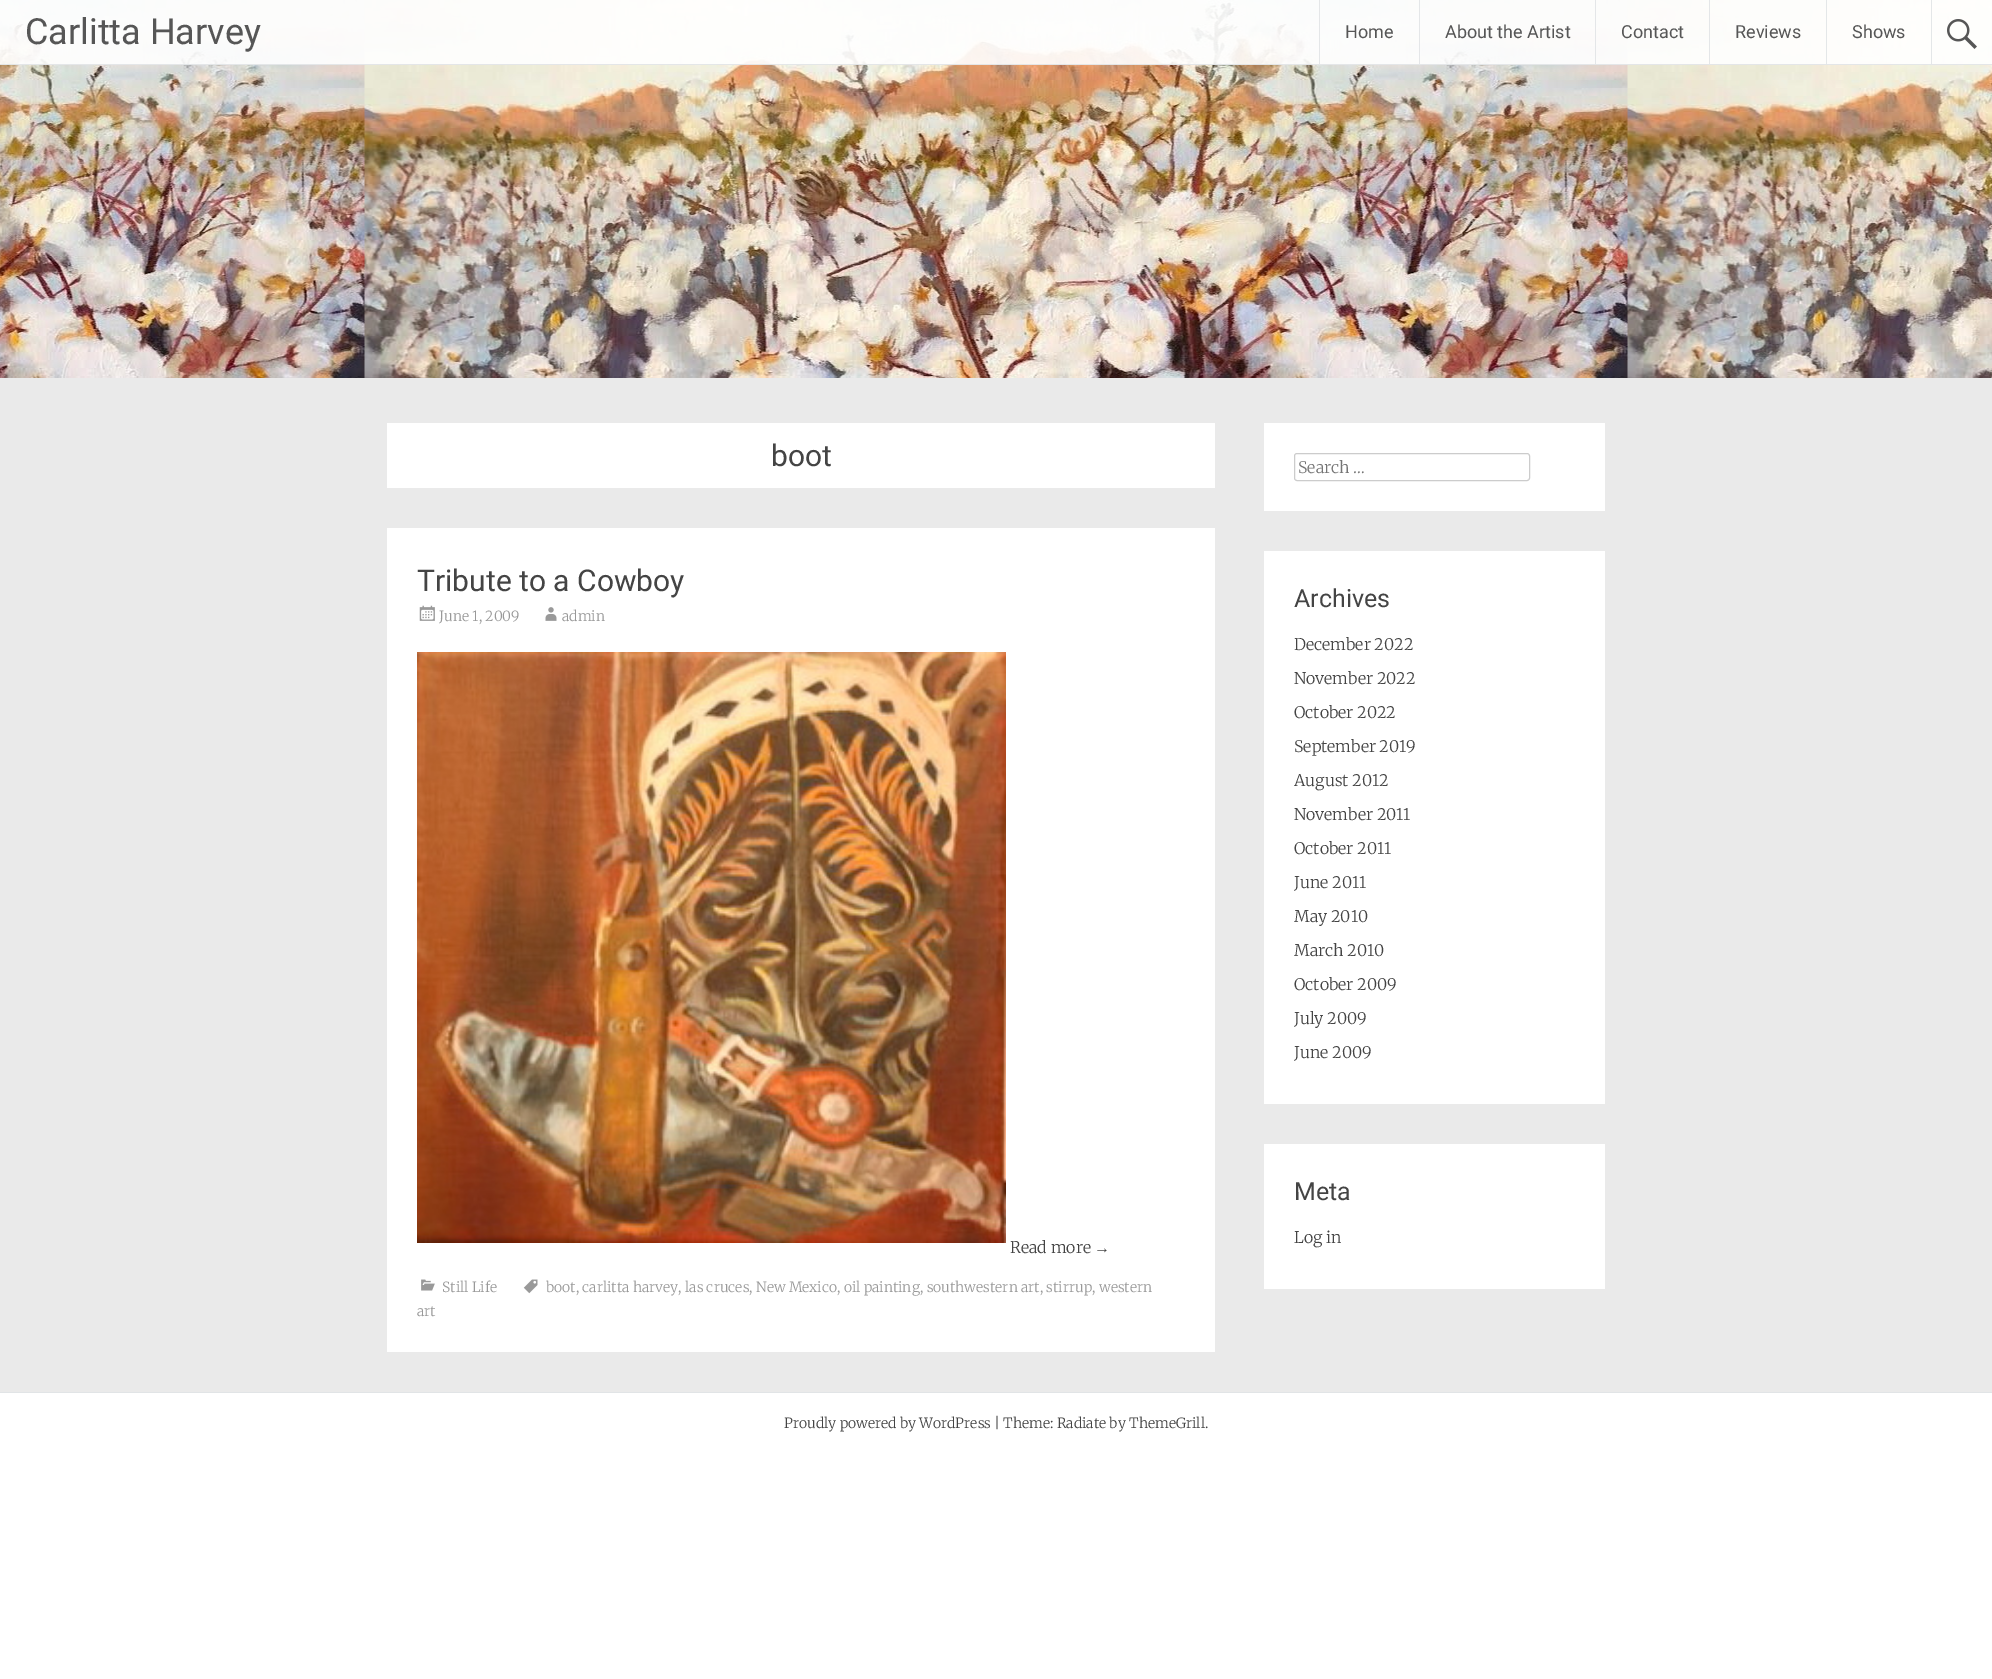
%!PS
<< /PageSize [1992 1679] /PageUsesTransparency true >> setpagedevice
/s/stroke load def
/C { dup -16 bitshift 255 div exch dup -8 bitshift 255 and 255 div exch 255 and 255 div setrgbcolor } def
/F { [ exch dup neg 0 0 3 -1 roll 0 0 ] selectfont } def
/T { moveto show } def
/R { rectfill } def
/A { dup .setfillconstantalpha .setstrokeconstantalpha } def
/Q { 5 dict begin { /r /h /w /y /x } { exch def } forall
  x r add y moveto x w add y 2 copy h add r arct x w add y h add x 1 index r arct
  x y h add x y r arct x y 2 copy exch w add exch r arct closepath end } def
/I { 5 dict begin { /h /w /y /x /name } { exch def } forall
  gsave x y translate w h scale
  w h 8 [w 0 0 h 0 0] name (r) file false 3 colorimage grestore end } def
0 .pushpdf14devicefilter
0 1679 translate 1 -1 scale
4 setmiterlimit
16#FFFFFF C
0 0 1992 1679 R
(1.rgb) 0 0 1992 378 I
0.9 A
0 0 1992 65 R
16#E1E4E6 C
0 64 1992 1 R
/Roboto-Regular 36 F
1 A
16#565656 C
(Carlitta Harvey) 25 44 T
16#E4E6E8 C
1319 0 1 64 R
/Roboto-Regular 18 F
16#565656 C
(Home) 1345 38 T
16#E4E6E8 C
1419 0 1 64 R
16#565656 C
(About the Artist) 1445 38 T
16#E4E6E8 C
1595 0 1 64 R
16#565656 C
(Contact) 1621 38 T
16#E4E6E8 C
1709 0 1 64 R
16#565656 C
(Reviews) 1735 38 T
16#E4E7E8 C
1826 0 1 64 R
16#565656 C
(Shows) 1852 38 T
16#E4E7E8 C
1931 0 1 64 R
(2.rgb) 1947 19 30 30 I
16#EAEAEA C
0 378 1992 1014 R
16#FFFFFF C
387 423 828 65 R
/Roboto-Regular 30 F
16#444444 C
(boot) 771 466 T
16#FFFFFF C
387 528 828 824 R
16#444444 C
(Tribute to a Cowboy) 417 591 T
(3.rgb) 419 605 16 16 I
/Merriweather-Light 14 F
16#999999 C
(June 1, 2009) 439 621 T
(4.rgb) 545 607 12 14 I
(admin) 562 621 T
(5.rgb) 417 652 589 591 I
/Merriweather-Light 16 F
16#444444 C
(Read more) 1010 1253 T
/LiberationSerif-Regular 16 F
(→) 1094 1253 T
(6.rgb) 523 1279 15 15 I
/Merriweather-Light 14 F
16#999999 C
(boot, carlitta harvey, las cruces, New Mexico, oil painting, southwestern art, stirrup, western) 546 1292 T
(art) 417 1316 T
(7.rgb) 421 1279 14 12 I
(Still Life) 442 1292 T
16#FFFFFF C
1264 423 341 88 R
16#CCCCCC C
1294.5 453.5 235 27 2.5 Q s
/Merriweather-Light 16 F
16#757575 C
(Search …) 1298 473 T
16#FFFFFF C
1264 551 341 553 R
/Roboto-Regular 25 F
16#444444 C
(Archives) 1294 607 T
/Merriweather-Light 16 F
(December 2022) 1294 650 T
(November 2022) 1294 684 T
(October 2022) 1294 718 T
(September 2019) 1294 752 T
(August 2012) 1294 786 T
(November 2011) 1294 820 T
(October 2011) 1294 854 T
(June 2011) 1294 888 T
(May 2010) 1294 922 T
(March 2010) 1294 956 T
(October 2009) 1294 990 T
(July 2009) 1294 1024 T
(June 2009) 1294 1058 T
16#FFFFFF C
1264 1144 341 145 R
/Roboto-Regular 25 F
16#444444 C
(Meta) 1294 1200 T
/Merriweather-Light 16 F
(Log in) 1294 1243 T
16#E1E4E6 C
0 1392 1992 1 R
/Merriweather-Light 14 F
16#444444 C
(Proudly powered by WordPress | Theme: Radiate by ThemeGrill.) 784 1428 T
.poppdf14devicefilter showpage
